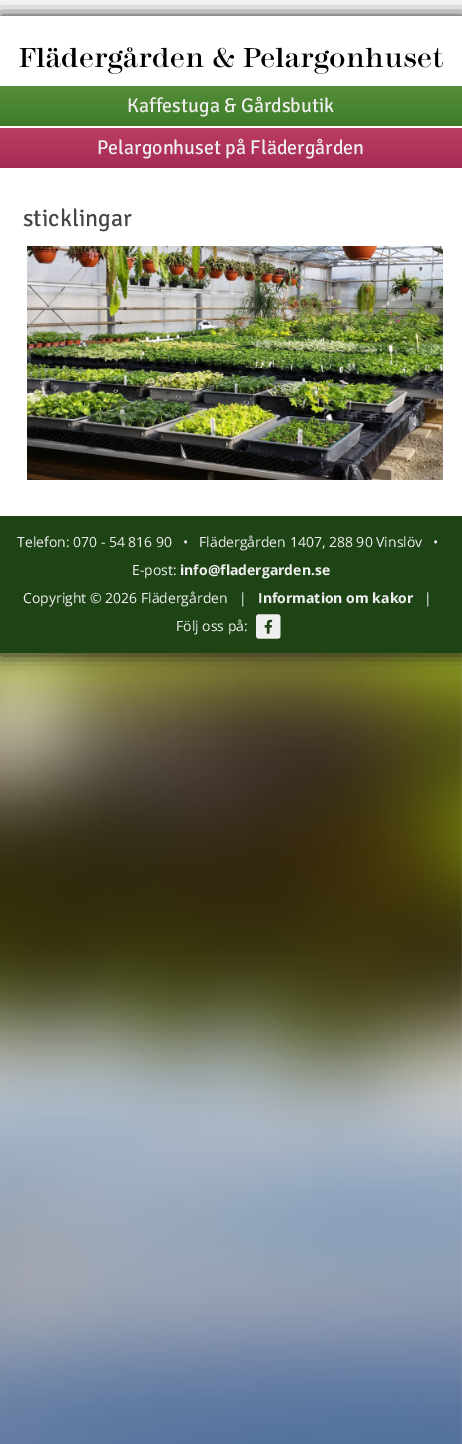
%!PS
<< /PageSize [462 1444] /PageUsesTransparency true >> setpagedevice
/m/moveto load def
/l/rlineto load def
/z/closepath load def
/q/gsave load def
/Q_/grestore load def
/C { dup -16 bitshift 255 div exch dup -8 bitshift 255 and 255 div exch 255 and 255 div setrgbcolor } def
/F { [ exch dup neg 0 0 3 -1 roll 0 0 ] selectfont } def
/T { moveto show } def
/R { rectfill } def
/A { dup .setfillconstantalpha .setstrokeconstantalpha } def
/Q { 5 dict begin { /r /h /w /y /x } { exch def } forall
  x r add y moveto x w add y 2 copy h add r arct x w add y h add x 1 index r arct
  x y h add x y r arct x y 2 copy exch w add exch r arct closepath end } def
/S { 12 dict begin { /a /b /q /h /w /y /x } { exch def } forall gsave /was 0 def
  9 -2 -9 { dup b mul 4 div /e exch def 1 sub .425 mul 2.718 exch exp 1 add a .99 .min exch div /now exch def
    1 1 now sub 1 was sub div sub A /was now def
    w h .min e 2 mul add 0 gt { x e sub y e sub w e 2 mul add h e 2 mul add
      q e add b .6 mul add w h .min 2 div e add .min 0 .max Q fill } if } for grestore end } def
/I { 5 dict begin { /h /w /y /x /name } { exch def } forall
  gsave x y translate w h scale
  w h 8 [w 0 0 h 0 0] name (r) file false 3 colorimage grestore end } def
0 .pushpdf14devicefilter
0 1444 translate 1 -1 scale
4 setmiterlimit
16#FFFFFF C
0 0 462 1444 R
(1.rgb) 0 653 462 791 I
16#222222 C
0 16 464 639 0 9 1 S
16#FFFFFF C
0 16 462 500 R
(2.rgb) 19 47 424 27 I
q 0 86 m 462 0 l 0 40 l -462 0 l z clip newpath
<< /ShadingType 2 /ColorSpace /DeviceRGB /Coords [231 86 231 126] /Extend [true true] /Function << /FunctionType 2 /Domain [0 1] /C0 [.337 .557 .227] /C1 [.247 .486 .165] /N 1 >> >> shfill Q_
/SignikaNegative-Regular 20 F
16#EFEFEF C
(Kaffestuga & Gårdsbutik) 127 112 T
q 0 128 m 462 0 l 0 40 l -462 0 l z clip newpath
<< /ShadingType 2 /ColorSpace /DeviceRGB /Coords [231 128 231 168] /Extend [true true] /Function << /FunctionType 2 /Domain [0 1] /C0 [.737 .235 .384] /C1 [.647 .173 .333] /N 1 >> >> shfill Q_
(Pelargonhuset på Flädergården) 97 154 T
/SignikaNegative-Regular 24 F
16#444444 C
(sticklingar) 23 226 T
(3.rgb) 27 246 416 234 I
16#1E4416 C
0 516 462 137 R
/OpenSans-Regular 14 F
16#EFEFEF C
(Telefon: 070 - 54 816 90   •   Flädergården 1407, 288 90 Vinslöv   •) 17 547 T
(E-post:) 132 575 T
/OpenSans-Bold 14 F
(info@fladergarden.se) 180 575 T
/OpenSans-Regular 14 F
(Copyright © 2026 Flädergården   |) 23 603 T
/OpenSans-Bold 14 F
(Information om kakor) 258 603 T
/OpenSans-Regular 14 F
(|) 424 603 T
(Följ oss på:) 176 631 T
(4.rgb) 256 614 25 25 I
(5.rgb) 264 619 9 15 I
.poppdf14devicefilter showpage
